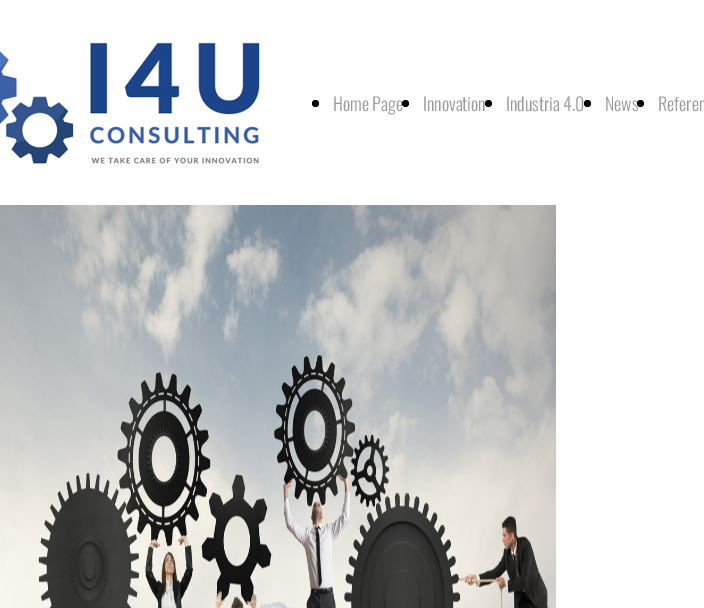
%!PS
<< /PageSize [704 608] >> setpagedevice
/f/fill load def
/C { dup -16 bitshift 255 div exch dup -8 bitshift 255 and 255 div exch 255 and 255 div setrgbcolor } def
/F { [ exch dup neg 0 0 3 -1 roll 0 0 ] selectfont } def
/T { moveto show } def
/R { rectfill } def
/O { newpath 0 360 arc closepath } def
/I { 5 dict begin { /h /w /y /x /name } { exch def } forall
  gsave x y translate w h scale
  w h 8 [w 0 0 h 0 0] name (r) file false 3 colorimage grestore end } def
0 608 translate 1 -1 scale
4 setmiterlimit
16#FFFFFF C
0 0 704 608 R
(1.rgb) 0 42 260 122 I
16#000000 C
315.5 103.5 3.5 O f
/Oswald-Light 18 F
16#999999 C
(Home Page) 333 111 T
16#000000 C
405.5 103.5 3.5 O f
16#999999 C
(Innovation) 423 111 T
16#000000 C
488.5 103.5 3.5 O f
16#999999 C
(Industria 4.0) 506 111 T
16#000000 C
587.5 103.5 3.5 O f
16#999999 C
(News) 605 111 T
16#000000 C
640.5 103.5 3.5 O f
16#999999 C
(Referen) 658 111 T
(2.rgb) 0 205 556 403 I
showpage
